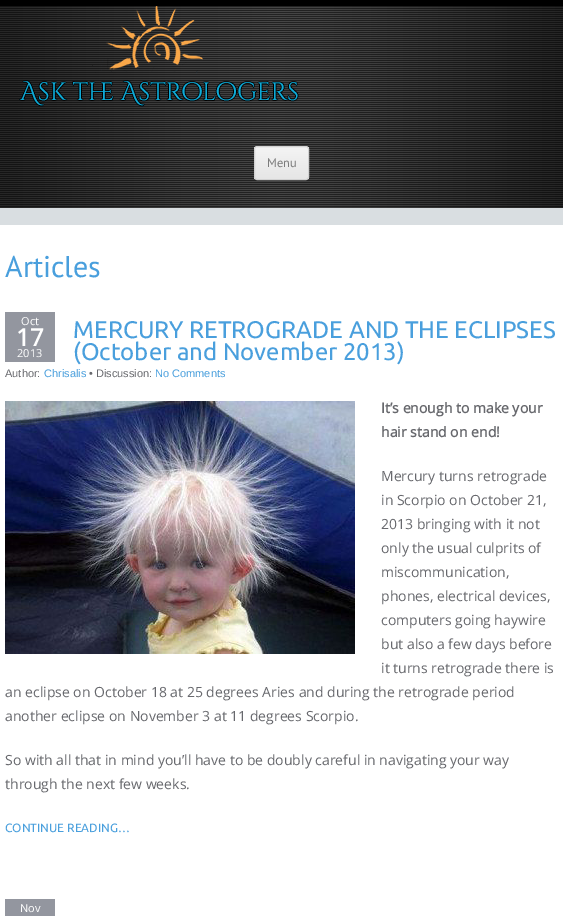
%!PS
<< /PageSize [563 916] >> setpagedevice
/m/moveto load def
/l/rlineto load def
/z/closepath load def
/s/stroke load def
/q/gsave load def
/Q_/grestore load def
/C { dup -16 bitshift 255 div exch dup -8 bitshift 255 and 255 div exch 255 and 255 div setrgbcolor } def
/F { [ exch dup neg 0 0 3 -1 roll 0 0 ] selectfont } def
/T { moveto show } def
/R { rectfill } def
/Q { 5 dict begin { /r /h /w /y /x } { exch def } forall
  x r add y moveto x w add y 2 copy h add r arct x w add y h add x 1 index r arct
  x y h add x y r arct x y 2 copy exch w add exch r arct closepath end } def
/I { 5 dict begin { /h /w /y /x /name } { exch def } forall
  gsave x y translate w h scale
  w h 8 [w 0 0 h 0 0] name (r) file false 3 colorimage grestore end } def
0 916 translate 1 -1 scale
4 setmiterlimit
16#000000 C
0 0 563 916 R
16#131313 C
0 6 563 202 R
16#D9DEE1 C
0 208 563 17 R
(1.rgb) 0 6 563 202 I
(2.rgb) 0 6 563 201 I
(3.rgb) 19 6 280 101 I
q
254 146 55 34 3 Q clip newpath
q 254 147 m 55 0 l 0 32 l -55 0 l z clip newpath
<< /ShadingType 2 /ColorSpace /DeviceRGB /Coords [282 147 282 179] /Extend [true true] /Function << /FunctionType 2 /Domain [0 1] /C0 [.957 .957 .957] /C1 [.902 .902 .902] /N 1 >> >> shfill Q_
Q_
16#D2D2D2 C
254.5 146.5 54 33 2.5 Q s
/PTSans-Regular 12.5 F
16#7C7C7C C
(Menu) 267 167 T
16#FFFFFF C
0 225 563 691 R
/PTSans-Regular 30 F
16#499FDD C
(Articles) 5 277 T
16#93969F C
5 312 50 50 R
/OpenSans-Regular 11 F
16#FFFFFF C
(Oct) 21 325 T
/OpenSans-Bold 24 F
(17) 16 346 T
/OpenSans-Regular 11 F
(2013) 17 357 T
/Ubuntu-Regular 24 F
16#499FDD C
(MERCURY RETROGRADE AND THE ECLIPSES) 73 338 T
(\(October and November 2013\)) 73 360 T
/LiberationSans-Regular 11 F
16#67686D C
(Author:) 5 377 T
16#499FDD C
(Chrisalis) 44 377 T
16#67686D C
(• Discussion:) 89 377 T
16#499FDD C
(No Comments) 155 377 T
(4.rgb) 5 401 350 253 I
/OpenSans-Bold 14 F
16#67686D C
(It’s enough to make your) 381 413 T
(hair stand on end!) 381 437 T
/OpenSans-Regular 14 F
(Mercury turns retrograde) 381 481 T
(in Scorpio on October 21,) 381 505 T
(2013 bringing with it not) 381 529 T
(only the usual culprits of) 381 553 T
(miscommunication,) 381 577 T
(phones, electrical devices,) 381 601 T
(computers going haywire) 381 625 T
(but also a few days before) 381 649 T
(it turns retrograde there is) 381 673 T
(an eclipse on October 18 at 25 degrees Aries and during the retrograde period) 5 697 T
(another eclipse on November 3 at 11 degrees Scorpio.) 5 721 T
(So with all that in mind you’ll have to be doubly careful in navigating your way) 5 765 T
(through the next few weeks.) 5 789 T
/Ubuntu-Regular 12 F
16#499FDD C
(CONTINUE READING…) 5 832 T
16#93969F C
5 899 50 17 R
/OpenSans-Regular 11 F
16#FFFFFF C
(Nov) 20 912 T
showpage
